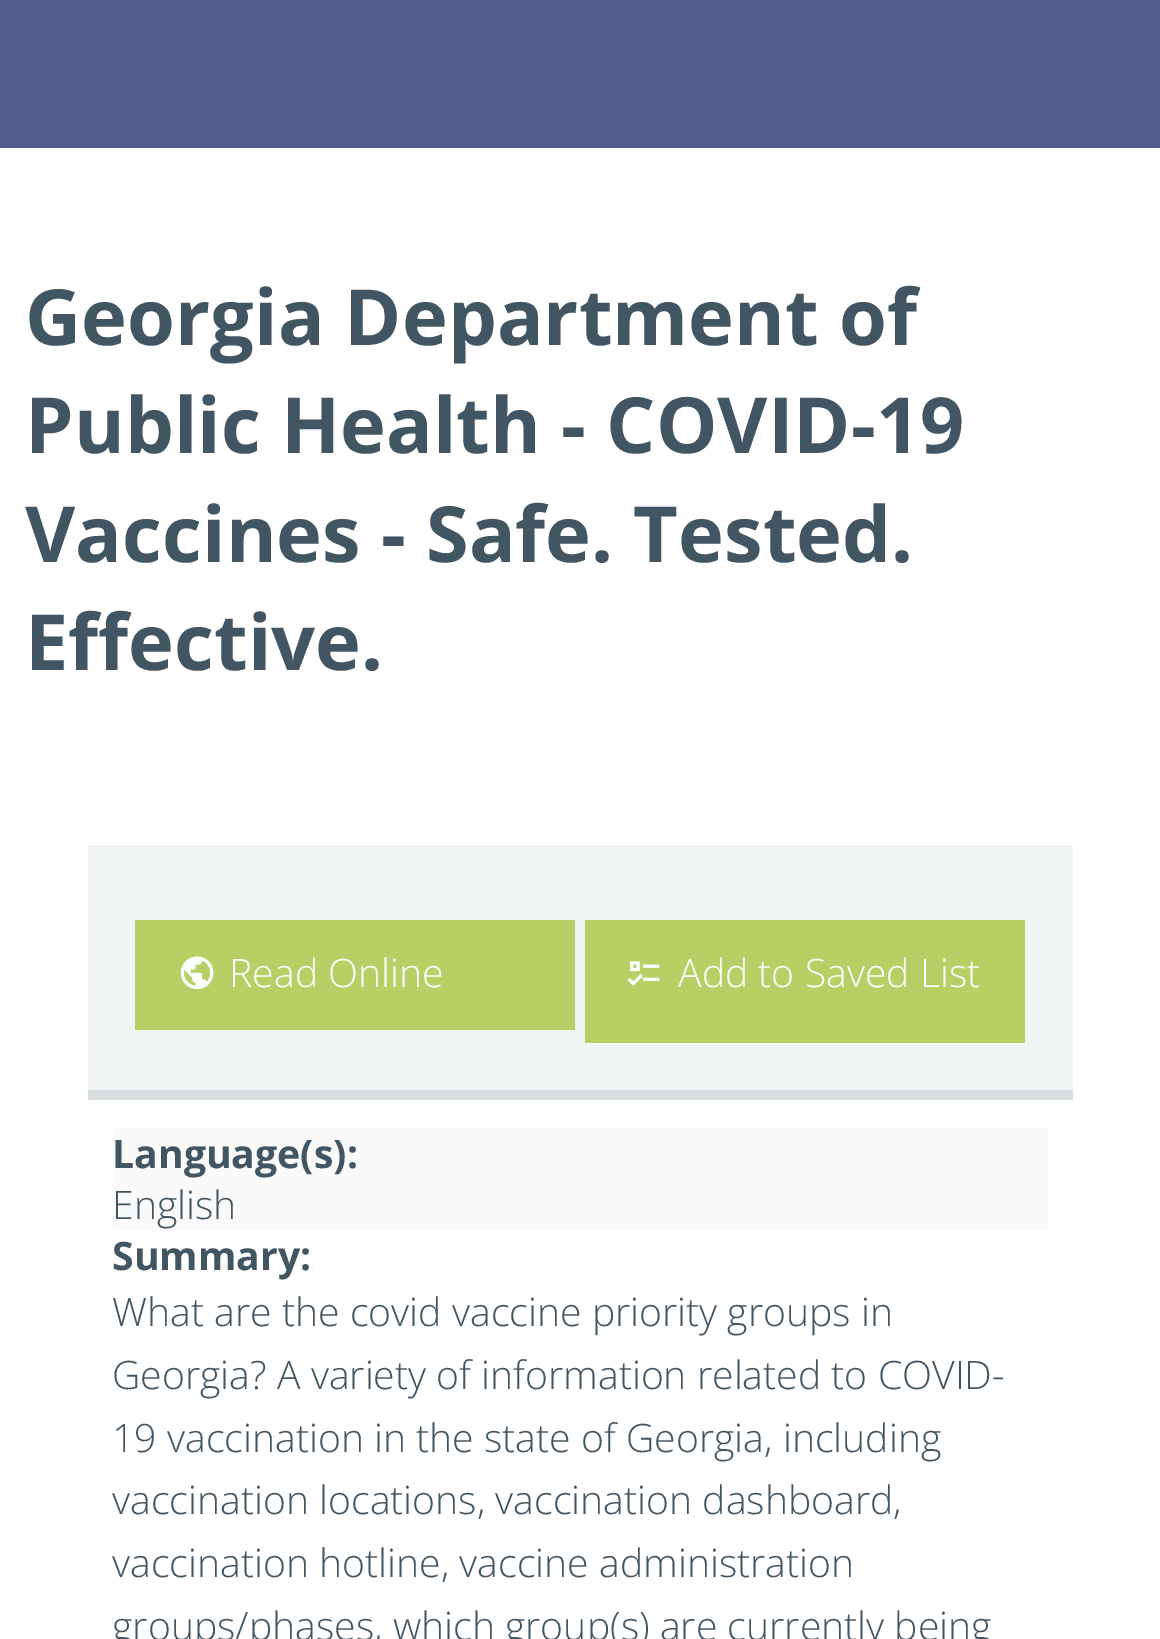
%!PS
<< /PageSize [1160 1639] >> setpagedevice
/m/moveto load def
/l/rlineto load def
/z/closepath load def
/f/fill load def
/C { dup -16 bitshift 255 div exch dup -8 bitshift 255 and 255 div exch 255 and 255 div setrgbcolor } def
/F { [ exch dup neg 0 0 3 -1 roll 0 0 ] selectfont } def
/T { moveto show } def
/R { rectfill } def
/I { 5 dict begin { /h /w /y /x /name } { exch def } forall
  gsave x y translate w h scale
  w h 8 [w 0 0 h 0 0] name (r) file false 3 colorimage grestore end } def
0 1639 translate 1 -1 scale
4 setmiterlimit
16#FFFFFF C
0 0 1160 1639 R
16#525D8C C
0 0 1160 148 R
/OpenSans-Bold 77.5 F
16#425563 C
(Georgia Department of) 25 345 T
(Public Health - COVID-19) 25 453 T
(Vaccines - Safe. Tested.) 25 562 T
(Effective.) 25 670 T
16#D8DDE0 C
88 1090 m 0 10 l 985 0 l 0 -245 l -1 0 l 0 235 l z f
16#F0F4F5 C
88 845 985 245 R
16#B7CF65 C
135 920 440 110 R
(1.rgb) 180 956 34 34 I
/OpenSans-Light 39.2 F
16#FFFFFF C
(Read Online) 229 987 T
16#B7CF65 C
585 920 440 123 R
(2.rgb) 627 961 33 25 I
16#FFFFFF C
(Add to Saved List) 678 987 T
16#FAFAFA C
113 1128 935 102 R
/OpenSans-Bold 39.2 F
16#425563 C
(Language\(s\):) 112 1168 T
/OpenSans-Light 39.2 F
(English) 112 1219 T
/OpenSans-Bold 39.2 F
(Summary:) 112 1270 T
/OpenSans-Light 39.2 F
(What are the covid vaccine priority groups in) 112 1326 T
(Georgia? A variety of information related to COVID-) 112 1389 T
(19 vaccination in the state of Georgia, including) 112 1452 T
(vaccination locations, vaccination dashboard,) 112 1514 T
(vaccination hotline, vaccine administration) 112 1577 T
(groups/phases, which group\(s\) are currently being) 112 1640 T
showpage
